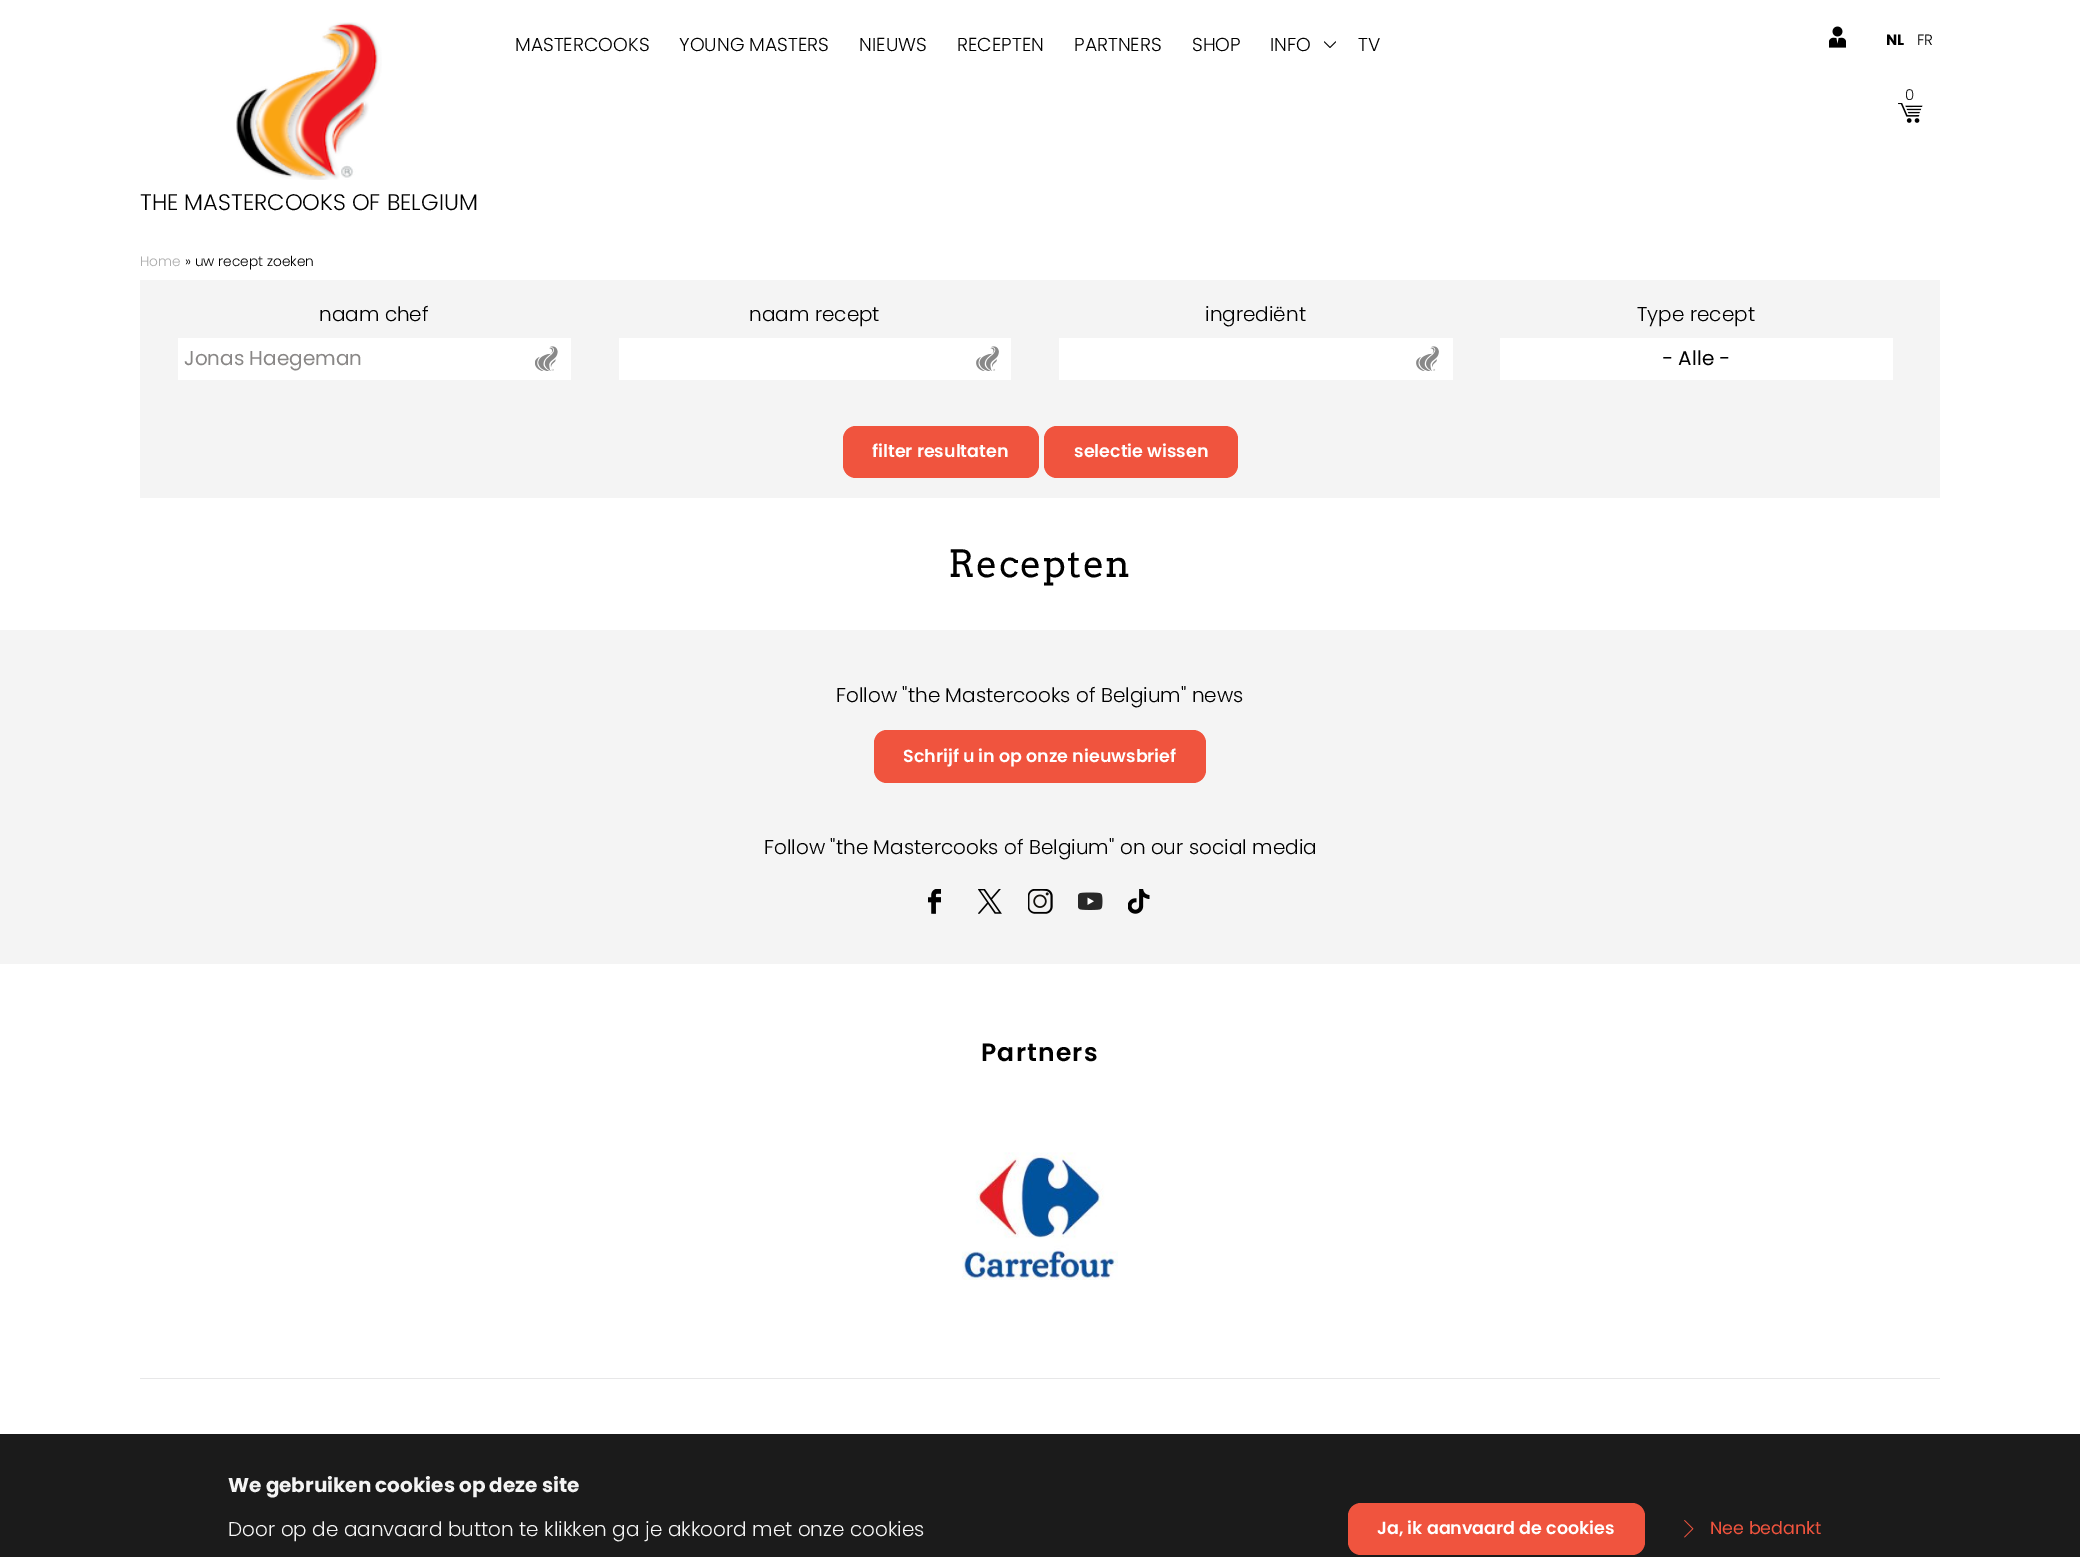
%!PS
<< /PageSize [2080 1557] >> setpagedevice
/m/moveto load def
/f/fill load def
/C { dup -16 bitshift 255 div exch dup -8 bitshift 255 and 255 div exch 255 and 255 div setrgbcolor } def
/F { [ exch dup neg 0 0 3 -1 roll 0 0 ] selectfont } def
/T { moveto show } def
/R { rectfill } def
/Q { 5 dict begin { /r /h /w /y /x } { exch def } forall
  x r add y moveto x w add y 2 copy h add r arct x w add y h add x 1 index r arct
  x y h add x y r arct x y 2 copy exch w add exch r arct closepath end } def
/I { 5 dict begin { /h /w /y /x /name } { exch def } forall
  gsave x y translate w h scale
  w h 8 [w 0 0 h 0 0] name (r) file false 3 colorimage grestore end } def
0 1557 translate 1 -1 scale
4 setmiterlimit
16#FFFFFF C
0 0 2080 1557 R
/Poppins-Light 18.75 F
16#000000 C
(MASTERCOOKS) 515 51 T
(YOUNG MASTERS) 679 51 T
(NIEUWS) 859 51 T
(RECEPTEN) 957 51 T
(PARTNERS) 1074 51 T
(SHOP) 1192 51 T
(1.rgb) 1324 41 12 7 I
(INFO) 1270 51 T
(TV) 1358 51 T
(2.rgb) 236 22 146 158 I
/Poppins-Light 22.5 F
(THE MASTERCOOKS OF BELGIUM) 140 210 T
(3.rgb) 1829 26 17 22 I
/Poppins-Bold 15 F
(NL) 1886 45 T
/Poppins-Light 15 F
(FR) 1917 45 T
(4.rgb) 1898 103 25 20 I
16#1B1B1B C
(0) 1905 100 T
/Poppins-Light 13.75 F
16#ACACAC C
(Home) 140 266 T
16#000000 C
(» uw recept zoeken) 185 266 T
16#F4F4F4 C
140 280 1800 218 R
/Poppins-Light 20 F
16#000000 C
(naam chef) 319 321 T
16#FFFFFF C
178 338 393 42 R
(5.rgb) 535 346 23 25 I
/Poppins-Regular 20 F
16#898786 C
(Jonas Haegeman) 184 365 T
/Poppins-Light 20 F
16#000000 C
(naam recept) 749 321 T
16#FFFFFF C
619 338 392 42 R
(6.rgb) 976 346 23 25 I
16#000000 C
(ingrediënt) 1205 321 T
16#FFFFFF C
1059 338 394 42 R
(6.rgb) 1416 346 23 25 I
16#000000 C
(Type recept) 1637 321 T
16#FFFFFF C
1500 338 393 42 R
/Poppins-Regular 20 F
16#000000 C
(- Alle -) 1662 365 T
16#F0543E C
843 426 196 52 13 Q f
/Poppins-SemiBold 17.5 F
16#FFFFFF C
(filter resultaten) 872 457 T
16#F0543E C
1044 426 194 52 13 Q f
16#FFFFFF C
(selectie wissen) 1074 457 T
/Arvo-Regular 37.5 F
16#000000 C
948 577 m 1.25 0 (Recepten) ashow
16#F4F4F4 C
0 630 2080 334 R
/Poppins-Light 20 F
16#000000 C
(Follow "the Mastercooks of Belgium" news) 836 702 T
16#F0543E C
874 730 332 53 13 Q f
/Poppins-SemiBold 17.5 F
16#FFFFFF C
(Schrijf u in op onze nieuwsbrief) 903 762 T
/Poppins-Light 20 F
16#000000 C
(Follow "the Mastercooks of Belgium" on our social media) 764 854 T
(7.rgb) 928 889 13 25 I
(8.rgb) 978 889 24 25 I
(9.rgb) 1028 889 25 25 I
(10.rgb) 1078 892 25 18 I
(11.rgb) 1128 889 22 25 I
/Poppins-SemiBold 25 F
981 1061 m 1.25 0 (Partners) ashow
(12.rgb) 961 1152 157 128 I
16#E7E7E8 C
140 1378 1800 1 R
16#1B1B1B C
0 1434 2080 123 R
/Poppins-Bold 20 F
16#F4F4F4 C
(We gebruiken cookies op deze site) 228 1492 T
/Poppins-Light 20 F
(Door op de aanvaard button te klikken ga je akkoord met onze cookies) 228 1536 T
16#F0543E C
1348 1503 297 52 13 Q f
/Poppins-SemiBold 17.5 F
16#FFFFFF C
(Ja, ik aanvaard de cookies) 1377 1534 T
(13.rgb) 1684 1520 10 18 I
/Poppins-Regular 17.5 F
16#F0543E C
(Nee bedankt) 1710 1534 T
showpage
